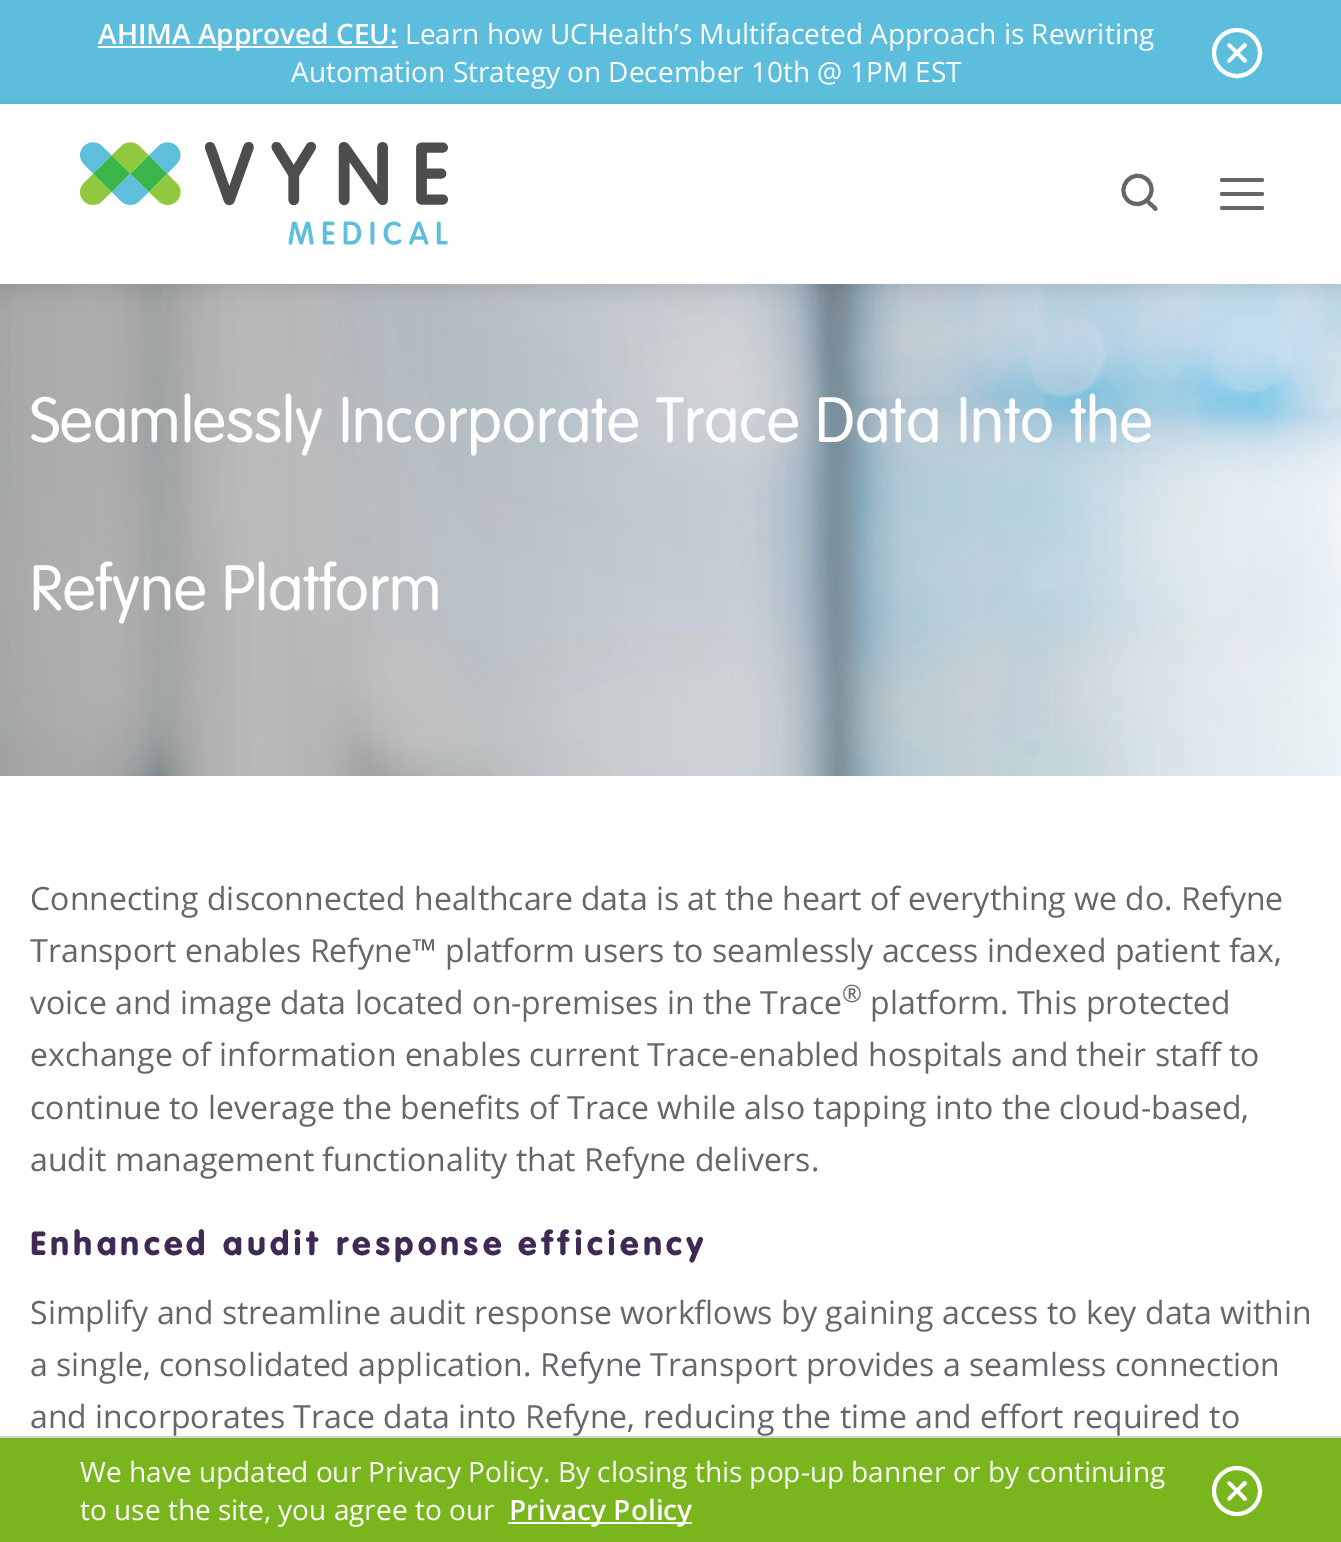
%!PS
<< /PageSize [1341 1542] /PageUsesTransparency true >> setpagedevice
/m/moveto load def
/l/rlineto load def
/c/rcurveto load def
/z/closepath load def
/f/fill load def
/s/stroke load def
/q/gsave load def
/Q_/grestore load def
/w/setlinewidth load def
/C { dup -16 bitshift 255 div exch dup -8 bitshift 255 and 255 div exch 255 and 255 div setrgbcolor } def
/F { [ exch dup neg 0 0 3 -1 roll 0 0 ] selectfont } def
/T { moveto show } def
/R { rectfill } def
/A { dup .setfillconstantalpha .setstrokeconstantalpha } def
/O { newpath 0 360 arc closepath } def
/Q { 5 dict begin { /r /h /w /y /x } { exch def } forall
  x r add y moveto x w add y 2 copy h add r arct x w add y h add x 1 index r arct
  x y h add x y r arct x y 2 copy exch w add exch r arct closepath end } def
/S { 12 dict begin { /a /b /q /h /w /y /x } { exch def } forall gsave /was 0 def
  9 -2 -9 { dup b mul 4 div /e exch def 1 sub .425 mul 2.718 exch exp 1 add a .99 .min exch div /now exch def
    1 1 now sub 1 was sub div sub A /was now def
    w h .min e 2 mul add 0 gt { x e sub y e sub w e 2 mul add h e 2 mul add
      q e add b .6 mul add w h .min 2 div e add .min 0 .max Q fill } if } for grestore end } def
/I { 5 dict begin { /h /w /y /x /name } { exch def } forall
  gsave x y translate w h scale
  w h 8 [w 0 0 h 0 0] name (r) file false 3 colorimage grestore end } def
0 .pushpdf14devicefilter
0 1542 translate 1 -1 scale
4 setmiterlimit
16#FFFFFF C
0 0 1341 1542 R
16#5CBEDC C
0 0 1341 104 R
16#FFFFFF C
98 46 300 2 R
/OpenSans-SemiBold 28 F
(AHIMA Approved CEU:) 98 44 T
/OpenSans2-Regular 28 F
(Learn how UCHealth’s Multifaceted Approach is Rewriting) 405 44 T
(Automation Strategy on December 10th @ 1PM EST) 291 82 T
4 w
1237 53 23 O s
1230.5 44 m 16 15.5 l .5 1.5 l 0 .5 -.5 1 -1 1.5 c -2 1.5 -4 -2 -5 -3 c -13.5 -13.5 l -1 -2 1.5 -3.5 3 -2 c z f
1228 59.5 m 15.5 -16 l 1.5 -.5 l .5 0 1 .5 1.5 1 c 1.5 2 -2 4 -3 5 c -13.5 13.5 l -2 1 -3.5 -1.5 -2 -3 c z f
(2.rgb) 0 284 1341 492 I
q
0 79 m 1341 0 l 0 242 l -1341 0 l z 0 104 m 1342 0 l 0 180 l -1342 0 l z eoclip newpath
16#000000 C
0 110 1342 180 0 10 .1 S
Q_
(1.rgb) 80 142 368 103 I
16#63666A C
1147 179.5 m 13.5 12.5 -5 33 -19 21 c -13.5 -12.5 5 -33.5 19 -21 c z s
1149.5 200.5 m 5 4.5 l 1 1 4.5 3.5 2 5.5 c -.5 .5 -1 .5 -1.5 .5 c -8.5 -8 l -1 -2 1.5 -3.5 3 -2.5 c z f
1220 178 44 4 2 Q f
1220 192 44 4 2 Q f
1220 206 44 4 2 Q f
/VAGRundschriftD-Light 67.25 F
16#FFFFFF C
(Seamlessly Incorporate Trace Data Into the) 30 442 T
(Refyne Platform) 30 610 T
/OpenSans-Regular 32 F
16#63666A C
(Connecting disconnected healthcare data is at the heart of everything we do. Refyne) 30 910 T
(Transport enables Refyne™ platform users to seamlessly access indexed patient fax,) 30 962 T
(voice and image data located on-premises in the Trace) 30 1014 T
/OpenSans-Regular 24 F
(®) 842 1002 T
/OpenSans-Regular 32 F
(platform. This protected) 870 1014 T
(exchange of information enables current Trace-enabled hospitals and their staff to) 30 1066 T
(continue to leverage the benefits of Trace while also tapping into the cloud-based,) 30 1119 T
(audit management functionality that Refyne delivers.) 30 1171 T
/VAGRundschriftD-Regular 35.25 F
16#3F2A56 C
30 1255 m 4 0 (Enhanced audit response efficiency) ashow
/OpenSans-Regular 32 F
16#63666A C
(Simplify and streamline audit response workflows by gaining access to key data within) 30 1324 T
(a single, consolidated application. Refyne Transport provides a seamless connection) 30 1376 T
(and incorporates Trace data into Refyne, reducing the time and effort required to) 30 1428 T
16#79B51C C
0 1438 1341 104 R
16#D3D3D4 C
0 1436 1341 2 R
/OpenSans2-Regular 28 F
16#FFFFFF C
(We have updated our Privacy Policy. By closing this pop-up banner or by continuing) 80 1482 T
(to use the site, you agree to our) 80 1520 T
508 1522 184 2 R
/OpenSans-SemiBold 28 F
(Privacy Policy) 509 1520 T
1237 1491 23 O s
1230.5 1482 m 16 15.5 l .5 1.5 l 0 .5 -.5 1 -1 1.5 c -2 1.5 -4 -2 -5 -3 c -13.5 -13.5 l -1 -2 1.5 -3.5 3 -2 c z f
1228 1497.5 m 15.5 -16 l 1.5 -.5 l .5 0 1 .5 1.5 1 c 1.5 2 -2 4 -3 5 c -13.5 13.5 l -2 1 -3.5 -1.5 -2 -3 c z f
.poppdf14devicefilter showpage
